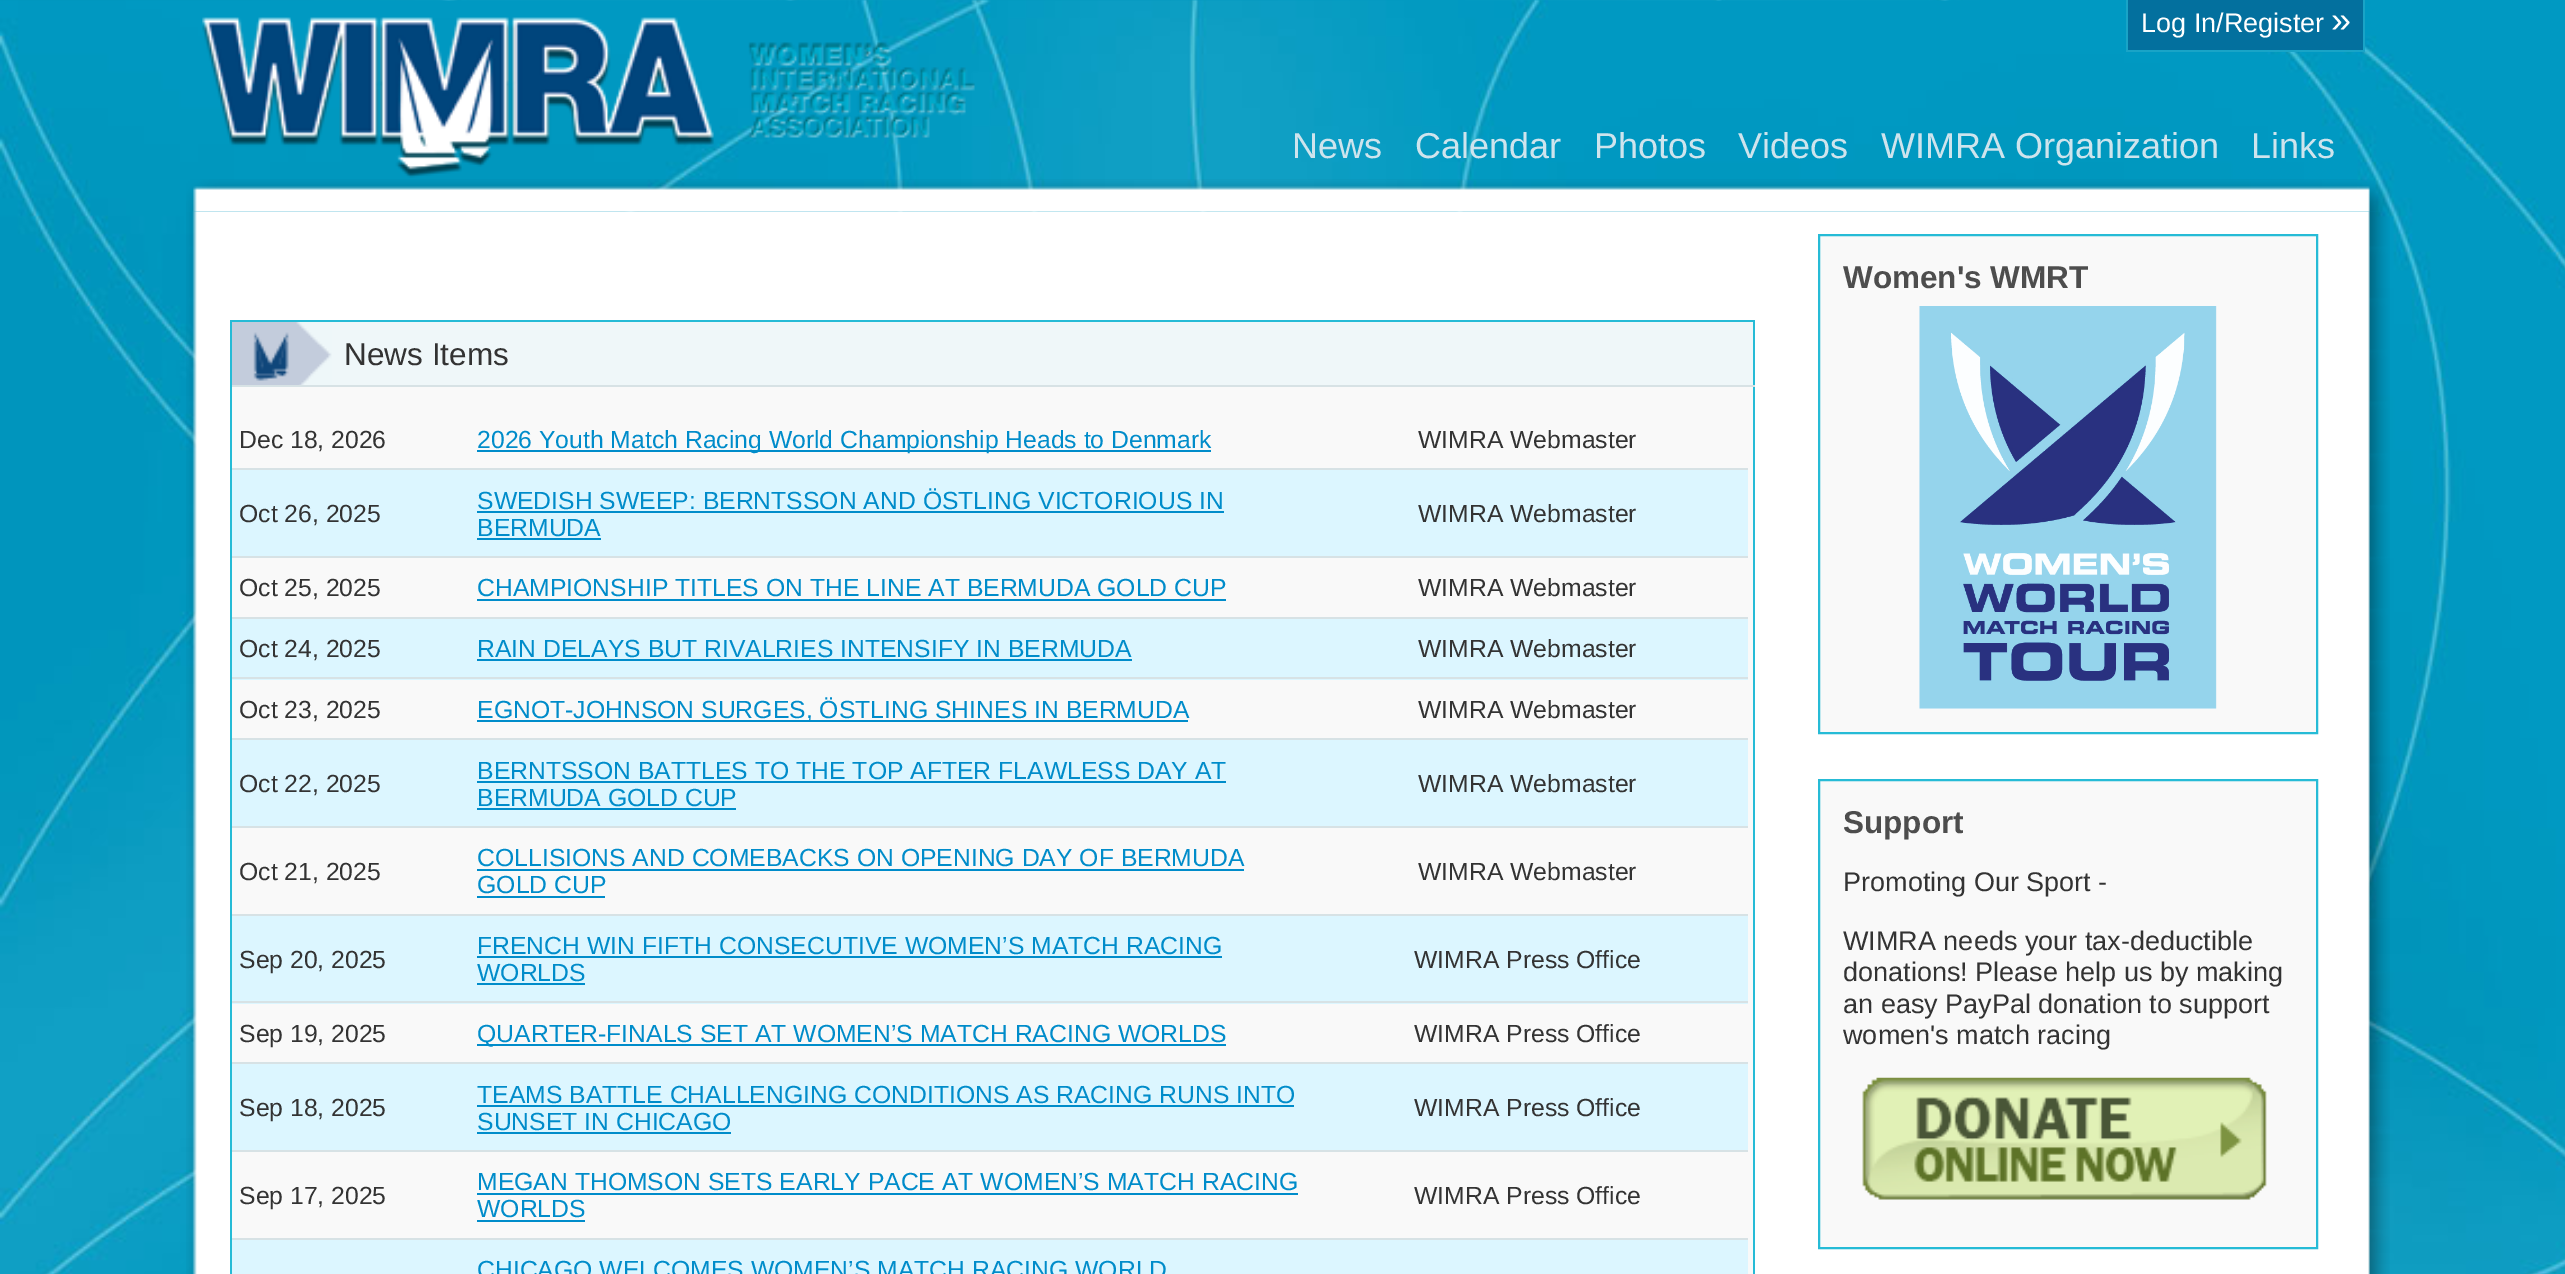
%!PS
<< /PageSize [2565 1274] >> setpagedevice
/m/moveto load def
/l/rlineto load def
/z/closepath load def
/f/fill load def
/s/stroke load def
/q/gsave load def
/Q_/grestore load def
/w/setlinewidth load def
/C { dup -16 bitshift 255 div exch dup -8 bitshift 255 and 255 div exch 255 and 255 div setrgbcolor } def
/F { [ exch dup neg 0 0 3 -1 roll 0 0 ] selectfont } def
/T { moveto show } def
/R { rectfill } def
/I { 5 dict begin { /h /w /y /x /name } { exch def } forall
  gsave x y translate w h scale
  w h 8 [w 0 0 h 0 0] name (r) file false 3 colorimage grestore end } def
0 1274 translate 1 -1 scale
4 setmiterlimit
16#FFFFFF C
0 0 2565 1274 R
(1.rgb) 0 0 2565 1274 I
(2.rgb) 202 17 773 161 I
16#03709E C
2128 0 235 50 R
/LiberationSans-Regular 27 F
16#FFFFFF C
(Log In/Register) 2141 32 T
16#19A4C7 C
2126 50 205 2 R
2126 0 2 52 R
/LiberationSans-Regular 36 F
16#FFFFFF C
(») 2331 32 T
16#19A4C7 C
2363 0 2 52 R
2331 50 34 2 R
16#CEE4ED C
(News) 1292 158 T
(Calendar) 1415 158 T
(Photos) 1594 158 T
(Videos) 1738 158 T
(WIMRA Organization) 1881 158 T
(Links) 2251 158 T
(3.rgb) 186 179 2204 33 I
(4.rgb) 186 211 2204 1063 I
16#EFF7F9 C
332 322 1421 63 R
(5.rgb) 232 322 100 63 I
16#26BBD6 C
230 320 1525 2 R
1753 320 2 954 R
16#D7E2E5 C
230 385 1525 2 R
16#26BBD6 C
230 320 2 954 R
/LiberationSans-Regular 31.5 F
16#333333 C
(News Items) 344 365 T
16#F9F9F9 C
232 387 1521 887 R
16#D7E2E5 C
232 468 1516 2 R
/LiberationSans-Regular 24.75 F
16#333333 C
(Dec 18, 2026) 239 448 T
16#008CCA C
477 450 734 2 R
(2026 Youth Match Racing World Championship Heads to Denmark) 477 448 T
16#333333 C
(WIMRA Webmaster) 1418 448 T
16#DCF6FF C
232 470 1516 86 R
16#D7E2E5 C
232 556 1516 2 R
16#333333 C
(Oct 26, 2025) 239 522 T
16#008CCA C
(SWEDISH SWEEP: BERNTSSON AND ÖSTLING VICTORIOUS IN) 477 509 T
477 511 747 2 R
(BERMUDA) 477 536 T
477 538 124 2 R
16#333333 C
(WIMRA Webmaster) 1418 522 T
16#D7E2E5 C
232 617 1516 2 R
16#333333 C
(Oct 25, 2025) 239 596 T
16#008CCA C
(CHAMPIONSHIP TITLES ON THE LINE AT BERMUDA GOLD CUP) 477 596 T
477 599 749 2 R
16#333333 C
(WIMRA Webmaster) 1418 596 T
16#DCF6FF C
232 619 1516 61 R
16#D7E2E5 C
232 677 1516 2 R
16#333333 C
(Oct 24, 2025) 239 657 T
16#008CCA C
(RAIN DELAYS BUT RIVALRIES INTENSIFY IN BERMUDA) 477 657 T
477 659 655 2 R
16#333333 C
(WIMRA Webmaster) 1418 657 T
16#D7E2E5 C
232 738 1516 2 R
16#333333 C
(Oct 23, 2025) 239 718 T
16#008CCA C
477 720 711 2 R
(EGNOT-JOHNSON SURGES, ÖSTLING SHINES IN BERMUDA) 477 718 T
16#333333 C
(WIMRA Webmaster) 1418 718 T
16#DCF6FF C
232 740 1516 86 R
16#D7E2E5 C
232 826 1516 2 R
16#333333 C
(Oct 22, 2025) 239 792 T
16#008CCA C
(BERNTSSON BATTLES TO THE TOP AFTER FLAWLESS DAY AT) 477 779 T
477 781 749 2 R
(BERMUDA GOLD CUP) 477 806 T
477 808 259 2 R
16#333333 C
(WIMRA Webmaster) 1418 792 T
16#D7E2E5 C
232 914 1516 2 R
16#333333 C
(Oct 21, 2025) 239 880 T
16#008CCA C
(COLLISIONS AND COMEBACKS ON OPENING DAY OF BERMUDA) 477 866 T
477 869 767 2 R
(GOLD CUP) 477 893 T
477 896 128 2 R
16#333333 C
(WIMRA Webmaster) 1418 880 T
16#DCF6FF C
232 916 1516 88 R
16#D7E2E5 C
232 1001 1516 2 R
16#333333 C
(Sep 20, 2025) 239 968 T
16#008CCA C
(FRENCH WIN FIFTH CONSECUTIVE WOMEN’S MATCH RACING) 477 954 T
477 956 745 2 R
(WORLDS) 477 981 T
477 983 108 2 R
16#333333 C
(WIMRA Press Office) 1414 968 T
16#D7E2E5 C
232 1062 1516 2 R
16#333333 C
(Sep 19, 2025) 239 1042 T
16#008CCA C
477 1044 749 2 R
(QUARTER-FINALS SET AT WOMEN’S MATCH RACING WORLDS) 477 1042 T
16#333333 C
(WIMRA Press Office) 1414 1042 T
16#DCF6FF C
232 1064 1516 86 R
16#D7E2E5 C
232 1150 1516 2 R
16#333333 C
(Sep 18, 2025) 239 1116 T
16#008CCA C
(TEAMS BATTLE CHALLENGING CONDITIONS AS RACING RUNS INTO) 477 1103 T
477 1105 817 2 R
(SUNSET IN CHICAGO) 477 1130 T
477 1132 254 2 R
16#333333 C
(WIMRA Press Office) 1414 1116 T
16#D7E2E5 C
232 1238 1516 2 R
16#333333 C
(Sep 17, 2025) 239 1204 T
16#008CCA C
(MEGAN THOMSON SETS EARLY PACE AT WOMEN’S MATCH RACING) 477 1190 T
477 1193 821 2 R
(WORLDS) 477 1217 T
477 1220 108 2 R
16#333333 C
(WIMRA Press Office) 1414 1204 T
16#DCF6FF C
232 1240 1516 34 R
16#008CCA C
(CHICAGO WELCOMES WOMEN’S MATCH RACING WORLD) 477 1278 T
16#F9F9F9 C
1819 235 m 498 0 l 0 498 l -498 0 l z q f Q_
16#26BBD6 C
2 w
s
/LiberationSans-Bold 31.5 F
16#4D4D4D C
(Women's WMRT) 1843 288 T
(6.rgb) 1919 306 298 403 I
16#F9F9F9 C
1819 780 m 498 0 l 0 468 l -498 0 l z q f Q_
16#26BBD6 C
s
16#4D4D4D C
(Support) 1843 833 T
/LiberationSans-Regular 27 F
16#333333 C
(Promoting Our Sport -) 1843 891 T
(WIMRA needs your tax-deductible) 1843 950 T
(donations! Please help us by making) 1843 981 T
(an easy PayPal donation to support) 1843 1013 T
(women's match racing) 1843 1044 T
(7.rgb) 1862 1077 405 123 I
showpage
